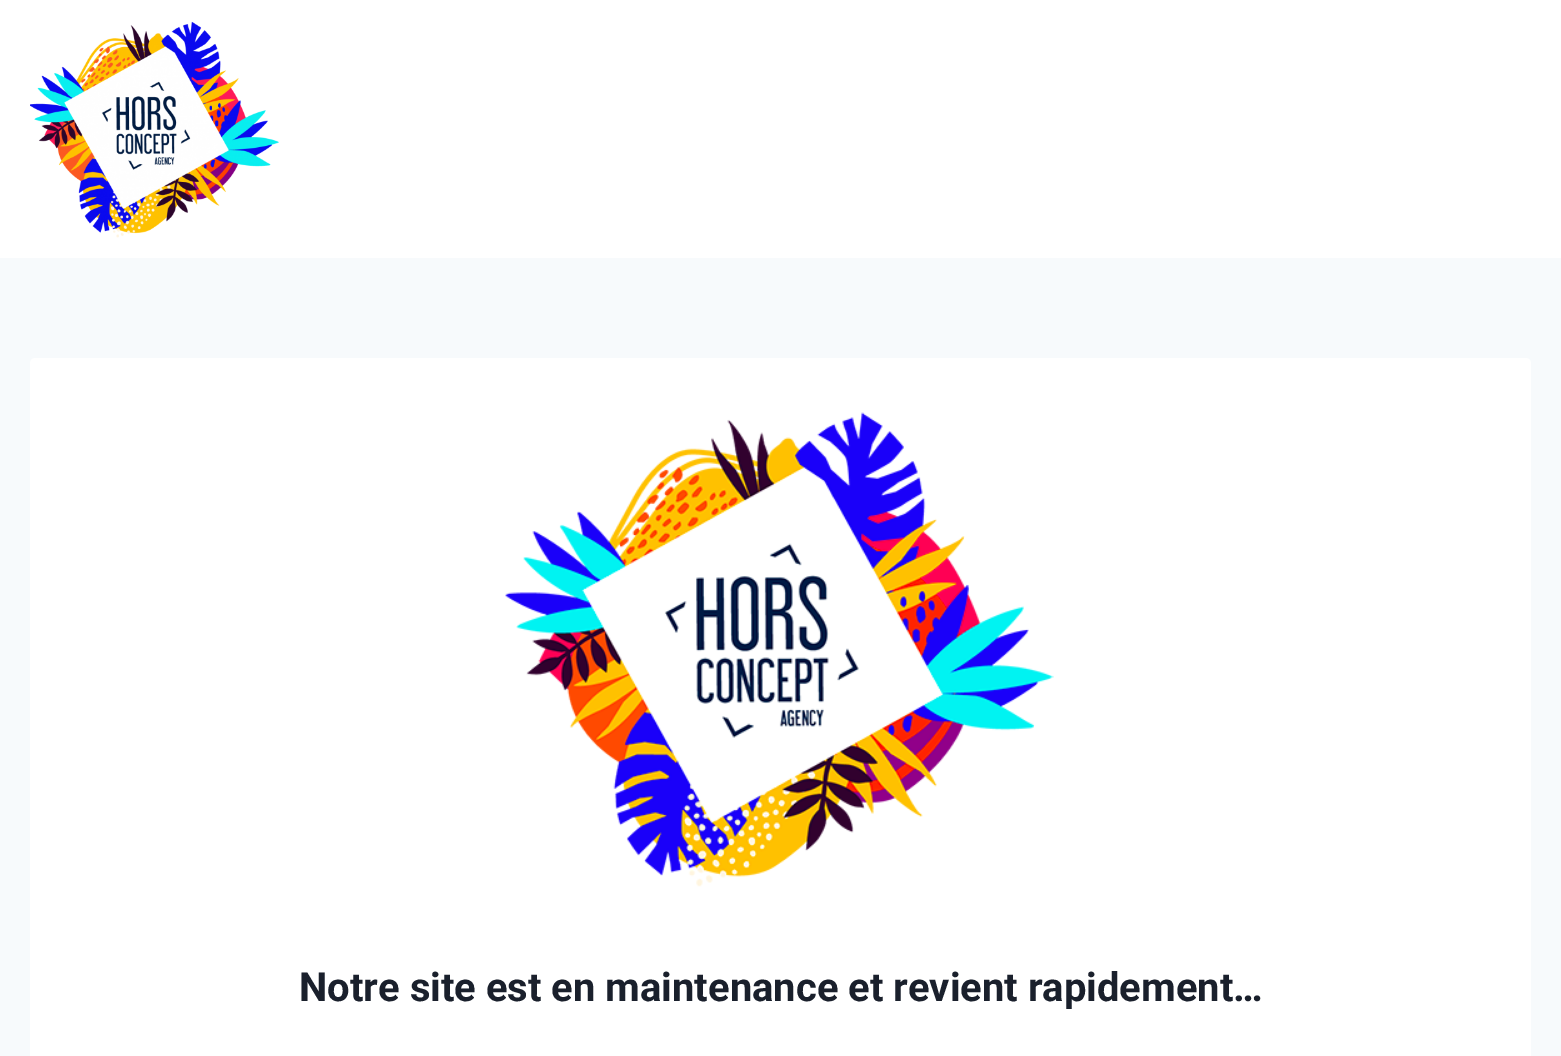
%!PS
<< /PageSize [1561 1056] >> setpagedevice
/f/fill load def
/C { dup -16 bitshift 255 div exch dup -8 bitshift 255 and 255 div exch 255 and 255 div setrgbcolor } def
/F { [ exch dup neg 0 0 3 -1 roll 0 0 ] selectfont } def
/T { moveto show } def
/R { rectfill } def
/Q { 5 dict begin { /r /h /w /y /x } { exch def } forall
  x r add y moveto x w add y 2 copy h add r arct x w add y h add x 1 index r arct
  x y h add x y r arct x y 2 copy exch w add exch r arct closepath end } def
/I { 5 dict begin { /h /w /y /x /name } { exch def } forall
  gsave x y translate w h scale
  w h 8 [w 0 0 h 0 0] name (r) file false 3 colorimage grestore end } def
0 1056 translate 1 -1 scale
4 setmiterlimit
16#F7FAFC C
0 0 1561 1056 R
16#FFFFFF C
0 0 1561 258 R
(1.rgb) 30 21 249 217 I
30 358 1501 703 5 Q f
(2.rgb) 505 412 549 475 I
/Roboto-Bold 40 F
16#1A202C C
(Notre site est en maintenance et revient rapidement…) 299 1001 T
showpage
